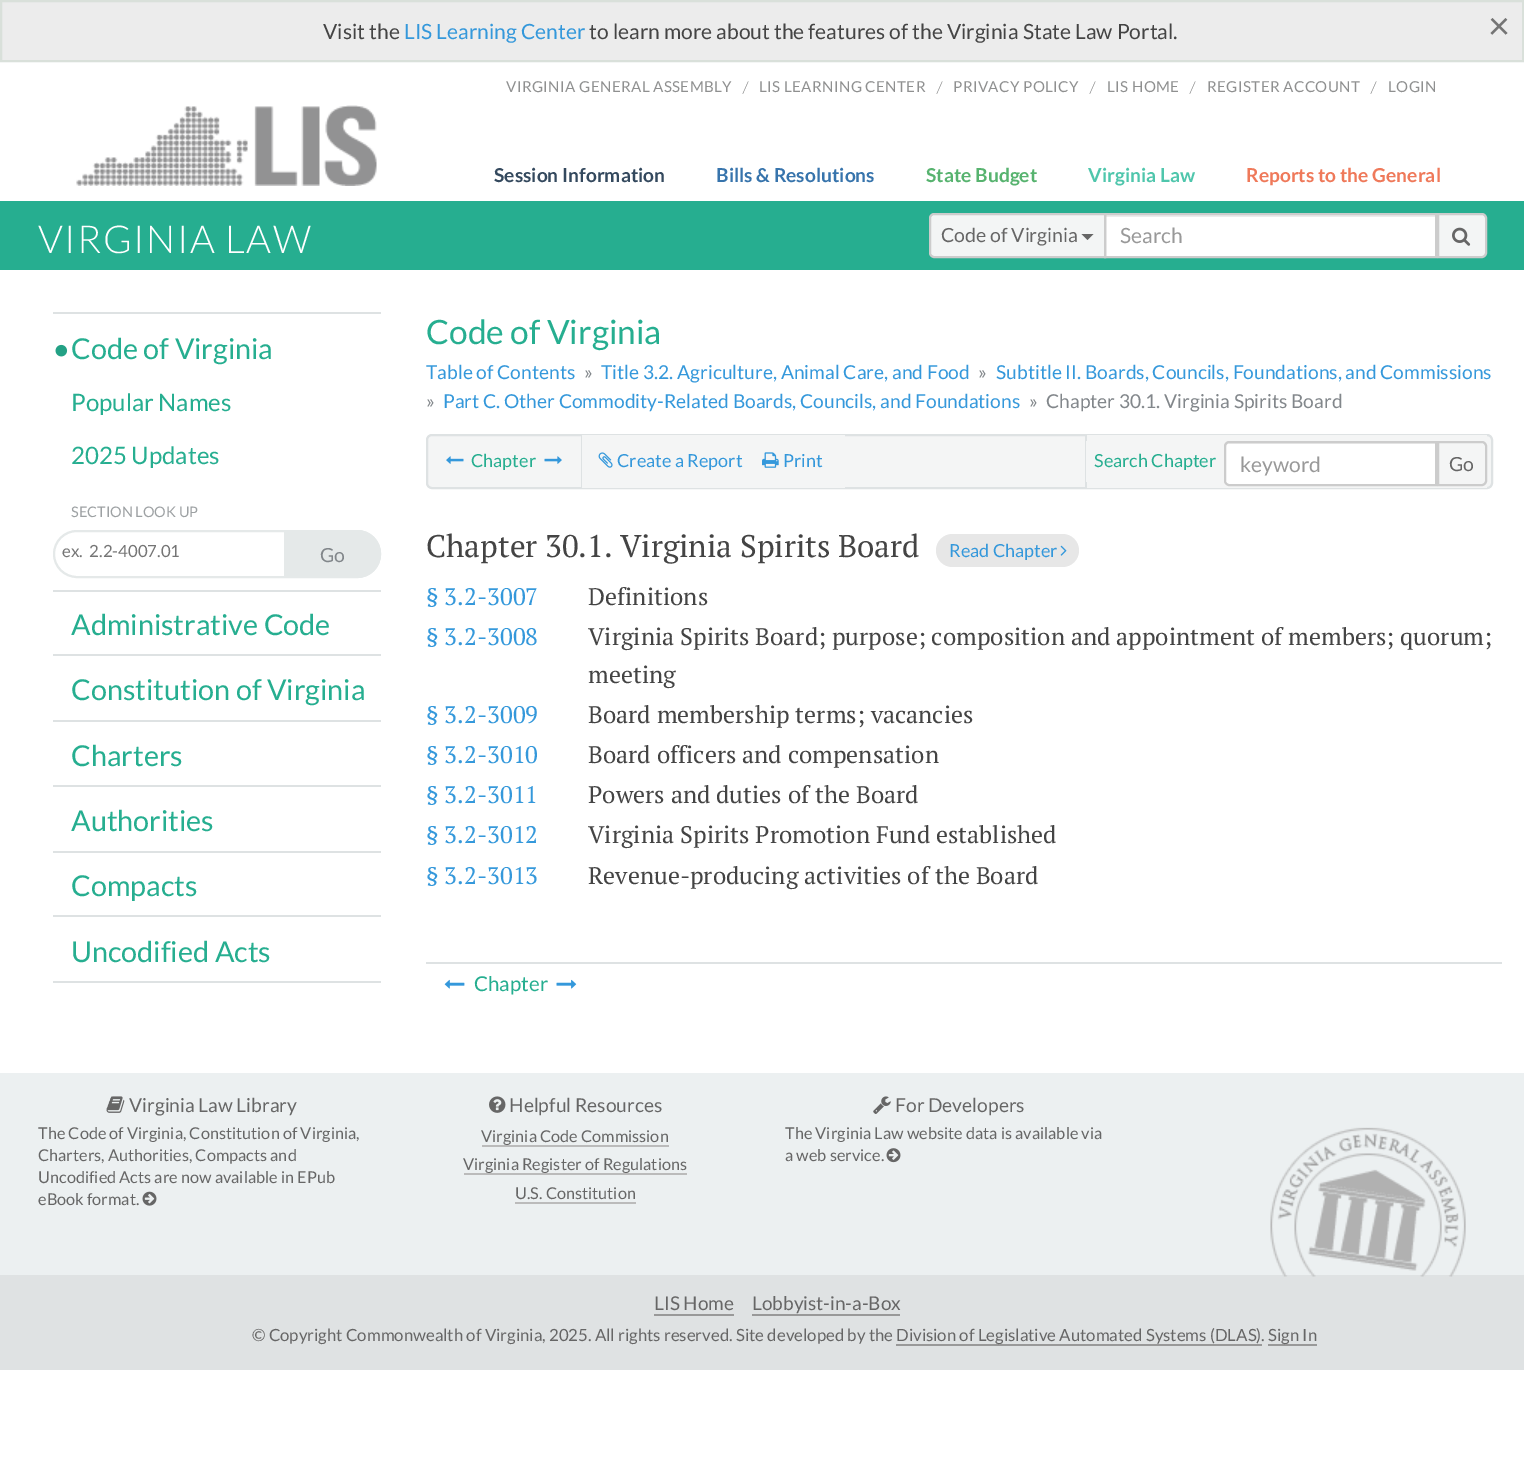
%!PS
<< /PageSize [1524 1475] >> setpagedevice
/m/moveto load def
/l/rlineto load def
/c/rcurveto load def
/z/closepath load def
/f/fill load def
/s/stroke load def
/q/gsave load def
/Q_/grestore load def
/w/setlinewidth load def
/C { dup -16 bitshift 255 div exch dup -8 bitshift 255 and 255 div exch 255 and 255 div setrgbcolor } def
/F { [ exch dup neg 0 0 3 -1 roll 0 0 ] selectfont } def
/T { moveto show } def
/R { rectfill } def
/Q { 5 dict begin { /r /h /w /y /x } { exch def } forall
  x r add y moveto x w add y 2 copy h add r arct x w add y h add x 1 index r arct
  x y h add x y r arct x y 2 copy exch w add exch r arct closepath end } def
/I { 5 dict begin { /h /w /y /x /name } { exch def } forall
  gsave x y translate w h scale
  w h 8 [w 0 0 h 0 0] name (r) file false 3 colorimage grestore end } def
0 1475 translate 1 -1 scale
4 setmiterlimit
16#FFFFFF C
0 0 1524 1475 R
16#ECECEC C
1 1 m 1522 0 l 0 60 l -1522 0 l z q f Q_
16#D9E0DA C
2 w
s
/Lato-Regular 21 F
16#444444 C
(Visit the) 323 39 T
16#3498DB C
(LIS Learning Center) 404 39 T
16#444444 C
(to learn more about the features of the Virginia State Law Portal.) 589 39 T
/Lato-Regular 38 F
16#757575 C
(×) 1488 39 T
/Lato-Regular 15.1 F
16#8F9090 C
506 92 m .4 0 (VIRGINIA GENERAL ASSEMBLY) ashow
/PTSerif-Regular 15.1 F
(/) 743 92 T
/Lato-Regular 15.1 F
759 92 m .4 0 (LIS LEARNING CENTER) ashow
/PTSerif-Regular 15.1 F
(/) 937 92 T
/Lato-Regular 15.1 F
953 92 m .4 0 (PRIVACY POLICY) ashow
/PTSerif-Regular 15.1 F
(/) 1090 92 T
/Lato-Regular 15.1 F
1107 92 m .4 0 (LIS HOME) ashow
/PTSerif-Regular 15.1 F
(/) 1190 92 T
/Lato-Regular 15.1 F
1207 92 m .4 0 (REGISTER ACCOUNT) ashow
/PTSerif-Regular 15.1 F
(/) 1371 92 T
/Lato-Regular 15.1 F
1388 92 m .4 0 (LOGIN) ashow
(1.rgb) 76 105 301 81 I
/Lato-Bold 19.2 F
16#34495E C
(Session Information) 494 182 T
16#3774AC C
(Bills & Resolutions) 716 182 T
16#57B36F C
(State Budget) 926 182 T
16#4FC6AC C
(Virginia Law) 1088 182 T
16#EF795A C
(Reports to the General) 1246 182 T
16#26AE90 C
0 201 1524 69 R
/Lato-Light 38.5 F
16#FFFFFF C
38 253 m 1.5 0 (VIRGINIA LAW) ashow
1106 217 329 39 R
16#ECECEC C
1106 215 330 2 R
16#CCCCCC C
1105 214 331 43 rectstroke
16#F3F5F5 C
934 214 m 171 0 l 0 43 l -171 0 l -2 0 -4 -2 -4 -4 c 0 -35 l 0 -2 2 -4 4 -4 c z q f Q_
16#CCCCCC C
s
/Lato-Regular 19.5 F
16#666666 C
(Code of Virginia) 941 242 T
1081.5 234 m 12 0 l -6 6 l z f
/Lato-Regular 21 F
16#999999 C
(Search) 1120 243 T
16#F3F5F5 C
1438 214 m 44 0 l 2 0 4 2 4 4 c 0 35 l 0 2 -2 4 -4 4 c -44 0 l z q f Q_
16#CCCCCC C
s
(2.rgb) 1452 227 19 19 I
16#DEE2E3 C
53 312 328 2 R
(3.rgb) 55 344 13 13 I
/Lato-Regular 28.75 F
16#26AE90 C
(Code of Virginia) 71 359 T
/Lato-Regular 24 F
(Popular Names) 71 411 T
(2025 Updates) 71 464 T
/Lato-Regular 14.5 F
16#9DA1A3 C
(SECTION LOOK UP) 71 517 T
16#E5E9E9 C
54 531 326 46 23 Q s
/Lato-Regular 16.8 F
16#757575 C
(ex.  2.2-4007.01) 62 557 T
16#E5E9E9 C
284 530 m 73 0 l 13.5 0 24 10.5 24 24 c 0 13.5 -10.5 24 -24 24 c -73 0 l z f
/Lato-Regular 19.5 F
16#82878B C
(Go) 320 562 T
16#DEE2E3 C
53 590 328 2 R
/Lato-Regular 28.75 F
16#26AE90 C
(Administrative Code) 71 635 T
16#DEE2E3 C
53 654 328 2 R
16#26AE90 C
(Constitution of Virginia) 71 700 T
16#DEE2E3 C
53 720 328 2 R
16#26AE90 C
(Charters) 71 766 T
16#DEE2E3 C
53 785 328 2 R
16#26AE90 C
(Authorities) 71 831 T
16#DEE2E3 C
53 851 328 2 R
16#26AE90 C
(Compacts) 71 896 T
16#DEE2E3 C
53 915 328 2 R
53 981 328 2 R
16#26AE90 C
(Uncodified Acts) 71 962 T
/Lato-Regular 33.5 F
(Code of Virginia) 426 344 T
/Lato-Regular 19.2 F
16#3498DB C
(Table of Contents) 426 379 T
16#82878B C
(») 584 379 T
16#3498DB C
(Title 3.2. Agriculture, Animal Care, and Food) 601 379 T
16#82878B C
(») 978 379 T
16#3498DB C
(Subtitle II. Boards, Councils, Foundations, and Commissions) 996 379 T
16#82878B C
(») 426 408 T
16#3498DB C
(Part C. Other Commodity-Related Boards, Councils, and Foundations) 443 408 T
16#82878B C
(») 1029 408 T
(Chapter 30.1. Virginia Spirits Board) 1046 408 T
16#F4F5F5 C
427 435 1065 53 5 Q q f Q_
16#DEE2E3 C
s
581 435 1 53 R
(4.rgb) 446 456 18 8 I
/Lato-Regular 18 F
16#26AE90 C
(Chapter) 471 467 T
(5.rgb) 544 456 18 8 I
16#F4F5F5 C
582 435 263 53 R
(6.rgb) 598 452 15 16 I
16#3498DB C
(Create a Report) 617 467 T
(7.rgb) 762 452 17 16 I
(Print) 783 467 T
16#F4F5F5 C
1087 435 400 53 R
16#DEE2E3 C
1085 435 2 53 R
16#F4F5F5 C
1086 441 1 41 R
16#26AE90 C
(Search Chapter) 1094 467 T
16#FFFFFF C
1229 441 m 208 0 l 0 45 l -208 0 l -3 0 -5 -2 -5 -5 c 0 -35 l 0 -3 2 -5 5 -5 c z f
16#ECECEC C
1228 444 m 208 0 l 0 -1 l -207 0 l -2 0 -3 1 -3 3 c 0 1 l 0 -2 1 -3 2 -3 c z f
16#CCCCCC C
1229 442 m 207 0 l 0 43 l -207 0 l -2 0 -4 -2 -4 -4 c 0 -35 l 0 -2 2 -4 4 -4 c z s
/Lato-Regular 21 F
16#999999 C
(keyword) 1240 472 T
16#CCCCCC C
1438 442 m 44 0 l 2 0 4 2 4 4 c 0 35 l 0 2 -2 4 -4 4 c -44 0 l z s
/Lato-Regular 19.5 F
16#666666 C
(Go) 1449 471 T
/PTSerif-Regular 31.25 F
16#444444 C
(Chapter 30.1. Virginia Spirits Board) 426 557 T
16#E7E7E7 C
936 534 143 33 16.5 Q f
/Lato-Regular 18 F
16#3498DB C
(Read Chapter) 949 557 T
(8.rgb) 1060 545 7 11 I
/PTSerif-Regular 24 F
(§ 3.2-3007) 426 605 T
16#444444 C
(Definitions) 588 605 T
16#3498DB C
(§ 3.2-3008) 426 645 T
16#444444 C
(Virginia Spirits Board; purpose; composition and appointment of members; quorum;) 588 645 T
(meeting) 588 683 T
16#3498DB C
(§ 3.2-3009) 426 723 T
16#444444 C
(Board membership terms; vacancies) 588 723 T
16#3498DB C
(§ 3.2-3010) 426 763 T
16#444444 C
(Board officers and compensation) 588 763 T
16#3498DB C
(§ 3.2-3011) 426 803 T
16#444444 C
(Powers and duties of the Board) 588 803 T
16#3498DB C
(§ 3.2-3012) 426 843 T
16#444444 C
(Virginia Spirits Promotion Fund established) 588 843 T
16#3498DB C
(§ 3.2-3013) 426 884 T
16#444444 C
(Revenue-producing activities of the Board) 588 884 T
16#DEE2E3 C
426 962 1076 2 R
(9.rgb) 444 979 21 10 I
/Lato-Regular 20.5 F
16#26AE90 C
(Chapter) 474 991 T
(10.rgb) 556 979 21 10 I
16#ECF0F1 C
0 1073 1524 202 R
(11.rgb) 106 1096 19 17 I
/Lato-Regular 19.2 F
16#666666 C
(Virginia Law Library) 129 1112 T
/Lato-Regular 16.3 F
(The Code of Virginia, Constitution of Virginia,) 38 1139 T
(Charters, Authorities, Compacts and) 38 1161 T
(Uncodified Acts are now available in EPub) 38 1183 T
(eBook format.) 38 1205 T
(12.rgb) 142 1191 15 15 I
(13.rgb) 489 1096 17 17 I
/Lato-Regular 19.2 F
(Helpful Resources) 509 1112 T
/Lato-Regular 16.3 F
(Virginia Code Commission) 481 1142 T
16#BBBBBB C
482 1145 187 2 R
16#666666 C
(Virginia Register of Regulations) 463 1170 T
16#BBBBBB C
464 1173 223 2 R
16#666666 C
(U.S. Constitution) 515 1199 T
16#BBBBBB C
515 1202 121 2 R
(14.rgb) 873 1096 18 18 I
/Lato-Regular 19.2 F
16#666666 C
(For Developers) 895 1112 T
/Lato-Regular 16.3 F
(The Virginia Law website data is available via) 785 1139 T
(a web service.) 785 1161 T
(15.rgb) 886 1148 15 15 I
16#DFE2E3 C
0 1275 1524 95 R
(16.rgb) 1270 1127 196 150 I
/Lato-Regular 19 F
16#666666 C
(LIS Home) 654 1310 T
16#999999 C
654 1314 80 2 R
16#666666 C
(Lobbyist-in-a-Box) 752 1310 T
16#999999 C
752 1314 148 2 R
/Lato-Regular 16.8 F
16#666666 C
(© Copyright Commonwealth of Virginia,) 252 1341 T
(2025. All rights reserved. Site developed by the) 549 1341 T
16#999999 C
896 1344 366 2 R
16#666666 C
(Division of Legislative Automated Systems \(DLAS\)) 896 1341 T
(.) 1261 1341 T
16#999999 C
1268 1344 49 2 R
16#666666 C
(Sign In) 1268 1341 T
showpage
